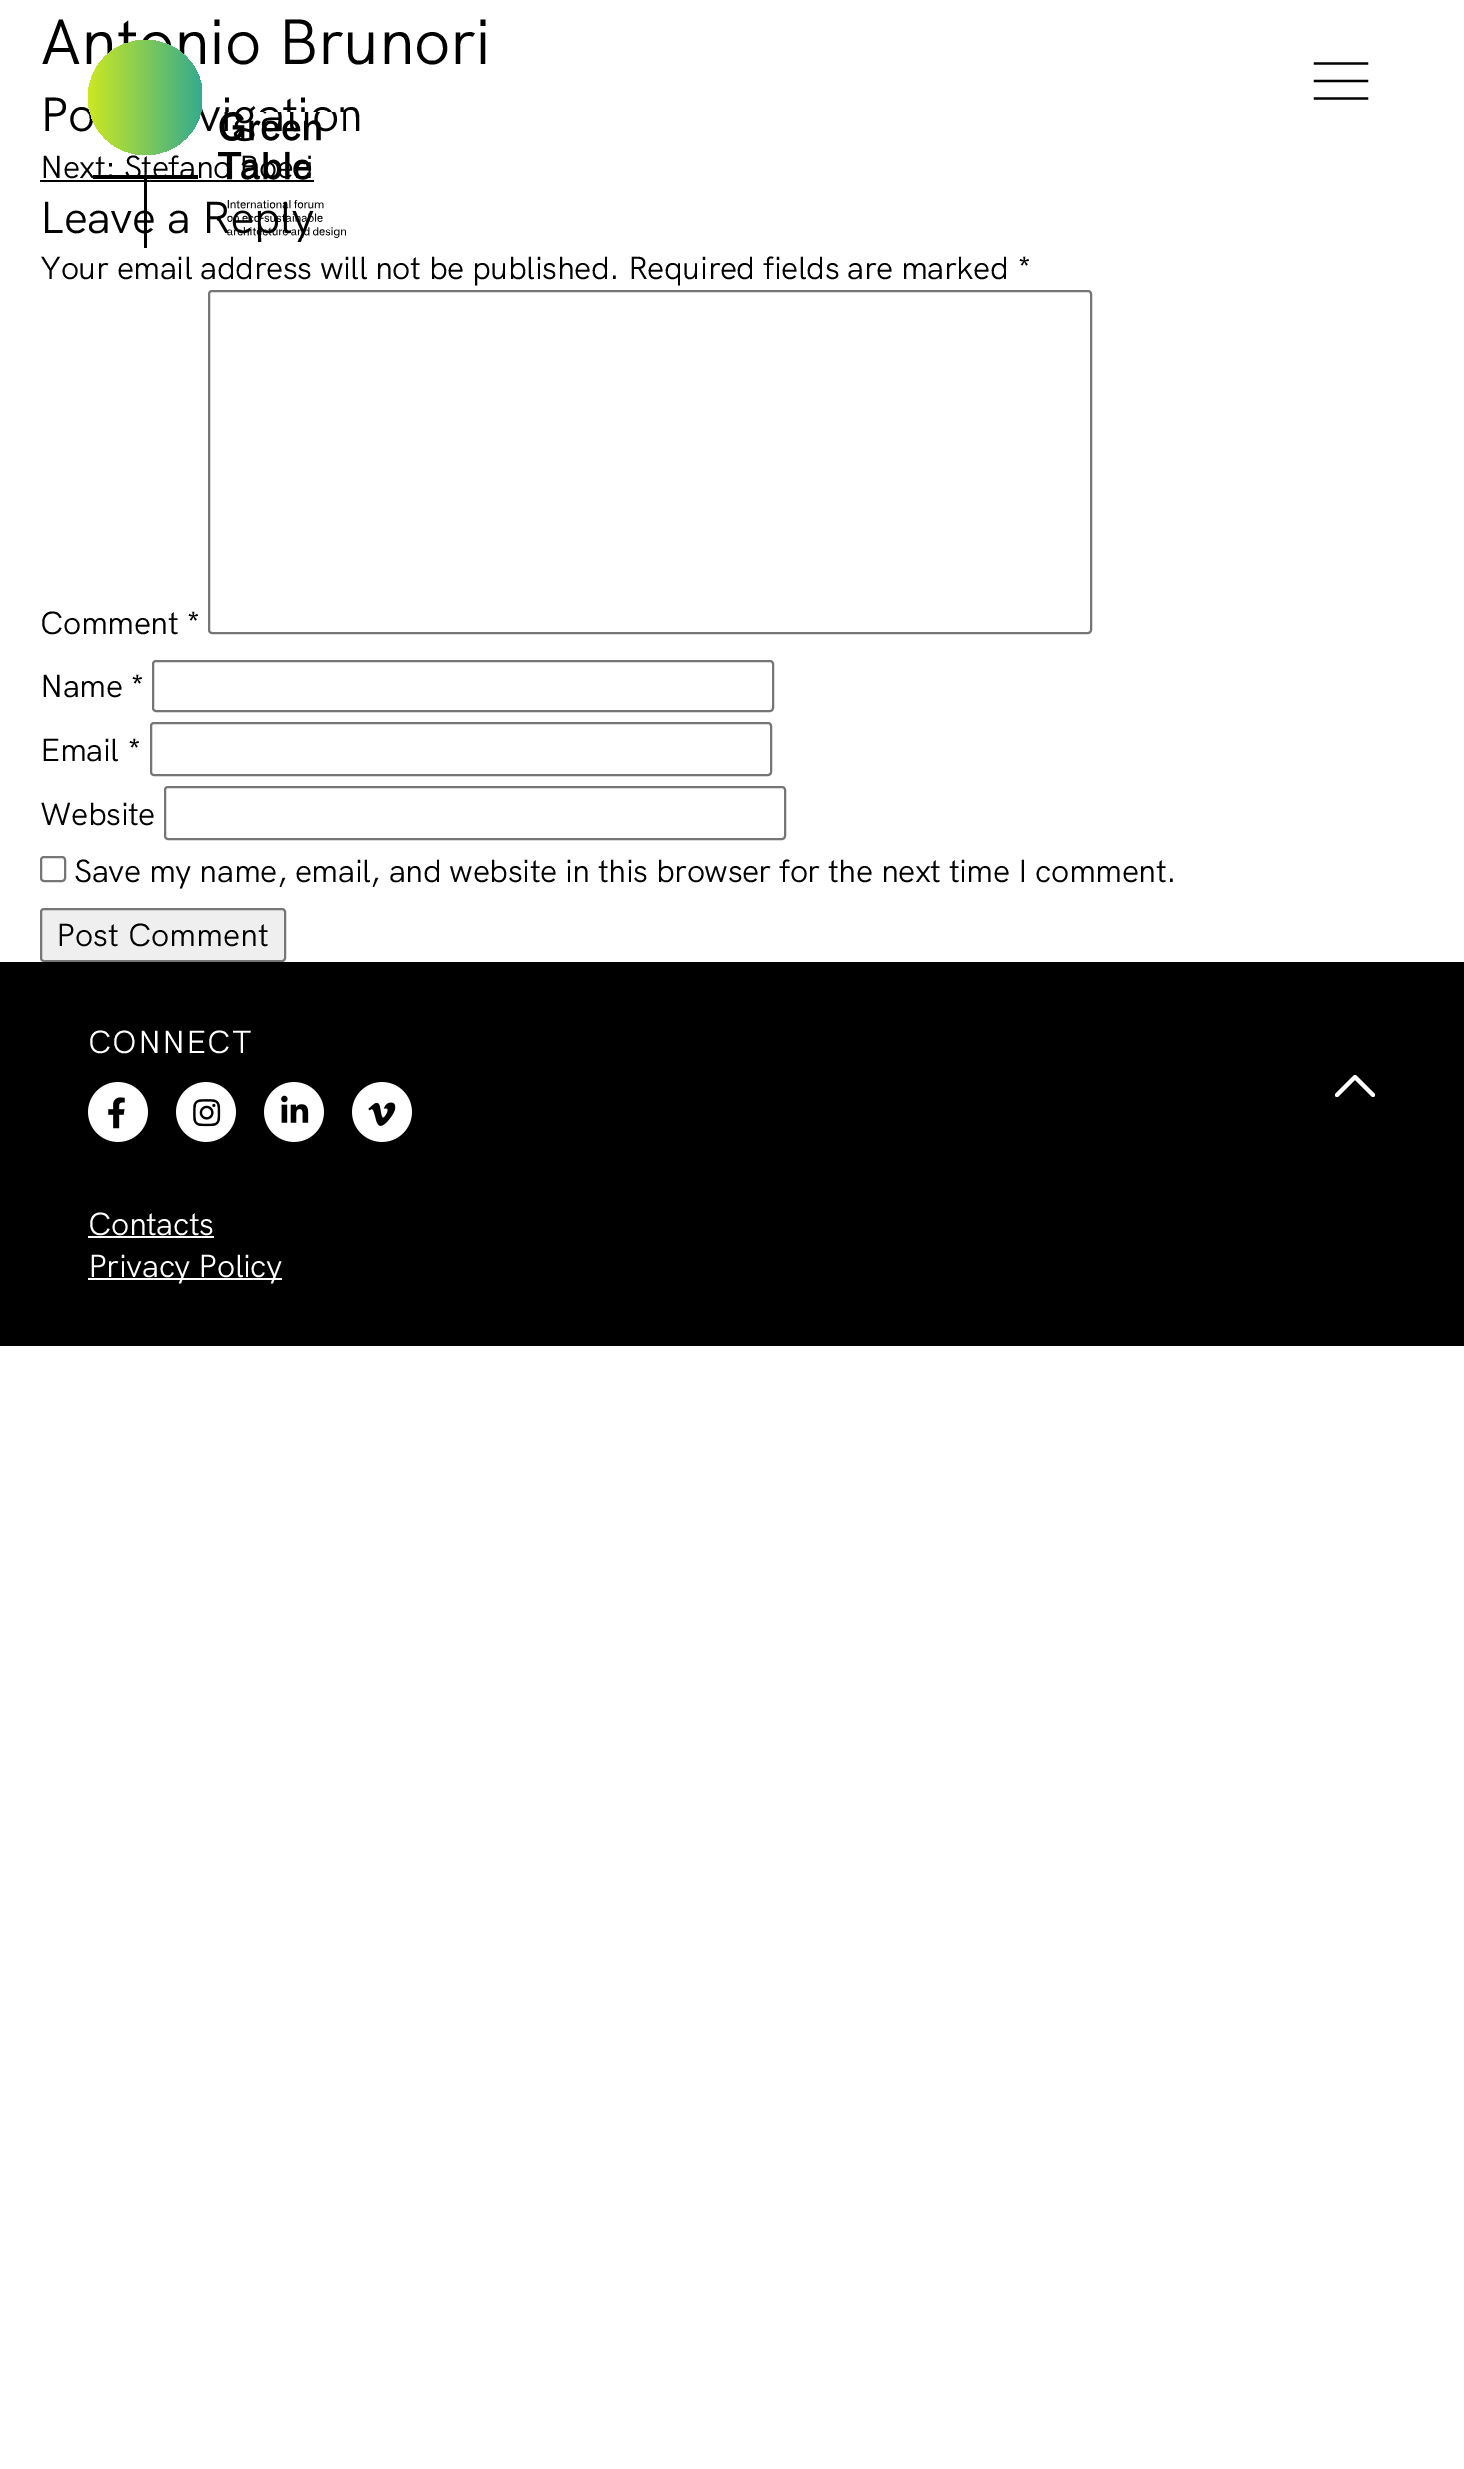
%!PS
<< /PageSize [1464 2469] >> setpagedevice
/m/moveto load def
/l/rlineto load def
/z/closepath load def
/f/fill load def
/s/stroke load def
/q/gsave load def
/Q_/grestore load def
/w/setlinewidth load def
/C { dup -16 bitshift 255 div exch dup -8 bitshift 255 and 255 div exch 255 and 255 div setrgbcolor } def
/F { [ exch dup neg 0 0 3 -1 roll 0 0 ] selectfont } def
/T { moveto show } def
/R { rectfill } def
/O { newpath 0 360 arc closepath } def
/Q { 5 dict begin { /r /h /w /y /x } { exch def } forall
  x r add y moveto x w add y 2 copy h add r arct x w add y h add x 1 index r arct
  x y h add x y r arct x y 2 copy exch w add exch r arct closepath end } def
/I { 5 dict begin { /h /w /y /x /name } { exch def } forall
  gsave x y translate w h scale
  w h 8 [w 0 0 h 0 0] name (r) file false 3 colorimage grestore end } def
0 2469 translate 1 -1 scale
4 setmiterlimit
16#FFFFFF C
0 0 1464 2469 R
/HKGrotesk-Regular 64 F
16#000000 C
40 64 m -.5 0 (Antonio Brunori) ashow
/HKGrotesk-Regular 48 F
40 131 m -.5 0 (Po) ashow
197 131 m -.5 0 (vigation) ashow
/HKGrotesk-Regular 32 F
40 178 m -.5 0 (Next: Stefano Boeri) ashow
40 180 274 2 R
/HKGrotesk-Regular 44.75 F
40 233 m -.5 0 (Leave a Reply) ashow
/HKGrotesk-Regular 32 F
40 279 m -.5 0 (Your email address will not be published. Required fields are marked *) ashow
40 634 m -.5 0 (Comment *) ashow
16#767676 C
2 w
209 291 882 342 3 Q s
16#000000 C
40 697 m -.5 0 (Name *) ashow
16#767676 C
153 661 620 50 3 Q s
16#000000 C
40 761 m -.5 0 (Email *) ashow
16#767676 C
151 723 620 52 3 Q s
16#000000 C
40 825 m -.5 0 (Website) ashow
16#767676 C
165 787 620 52 3 Q s
41 857 24 24 3 Q s
16#000000 C
74 882 m -.5 0 (Save my name, email, and website in this browser for the next time I comment.) ashow
16#EFEFEF C
41 909 244 52 3 Q q f Q_
16#767676 C
s
16#000000 C
(Post Comment) 56 946 T
q
88 40 114 208 rectclip
q 145.5 97.5 57.5 O clip newpath
<< /ShadingType 2 /ColorSpace /DeviceRGB /Coords [88 98 202 98] /Extend [true true] /Function << /FunctionType 2 /Domain [0 1] /C0 [.8 .91 .133] /C1 [.204 .671 .561] /N 1 >> >> shfill Q_
Q_
198 179 m 0 -4 l -105 0 l 0 4 l 51 0 l 0 69 l 3 0 l 0 -69 l z f
(1.rgb) 218 112 128 126 I
2.2 w
2 setlinecap
1315 63.5 m 52 0 l 1315 81 m 52 0 l 1315 98.5 m 52 0 l s
0 962 1464 384 R
16#FFFFFF C
88 1053 m 1 0 (CONNECT) ashow
(2.rgb) 88 1082 60 60 I
(3.rgb) 176 1082 60 60 I
(4.rgb) 264 1082 60 60 I
(5.rgb) 352 1082 60 60 I
4 w
1 setlinecap
1355 1077 m 18 18 l 1355 1077 m -18 18 l s
88 1235 m -.5 0 (Contacts) ashow
88 1236 126 2 R
88 1278 194 2 R
88 1277 m -.5 0 (Privacy Policy) ashow
showpage
